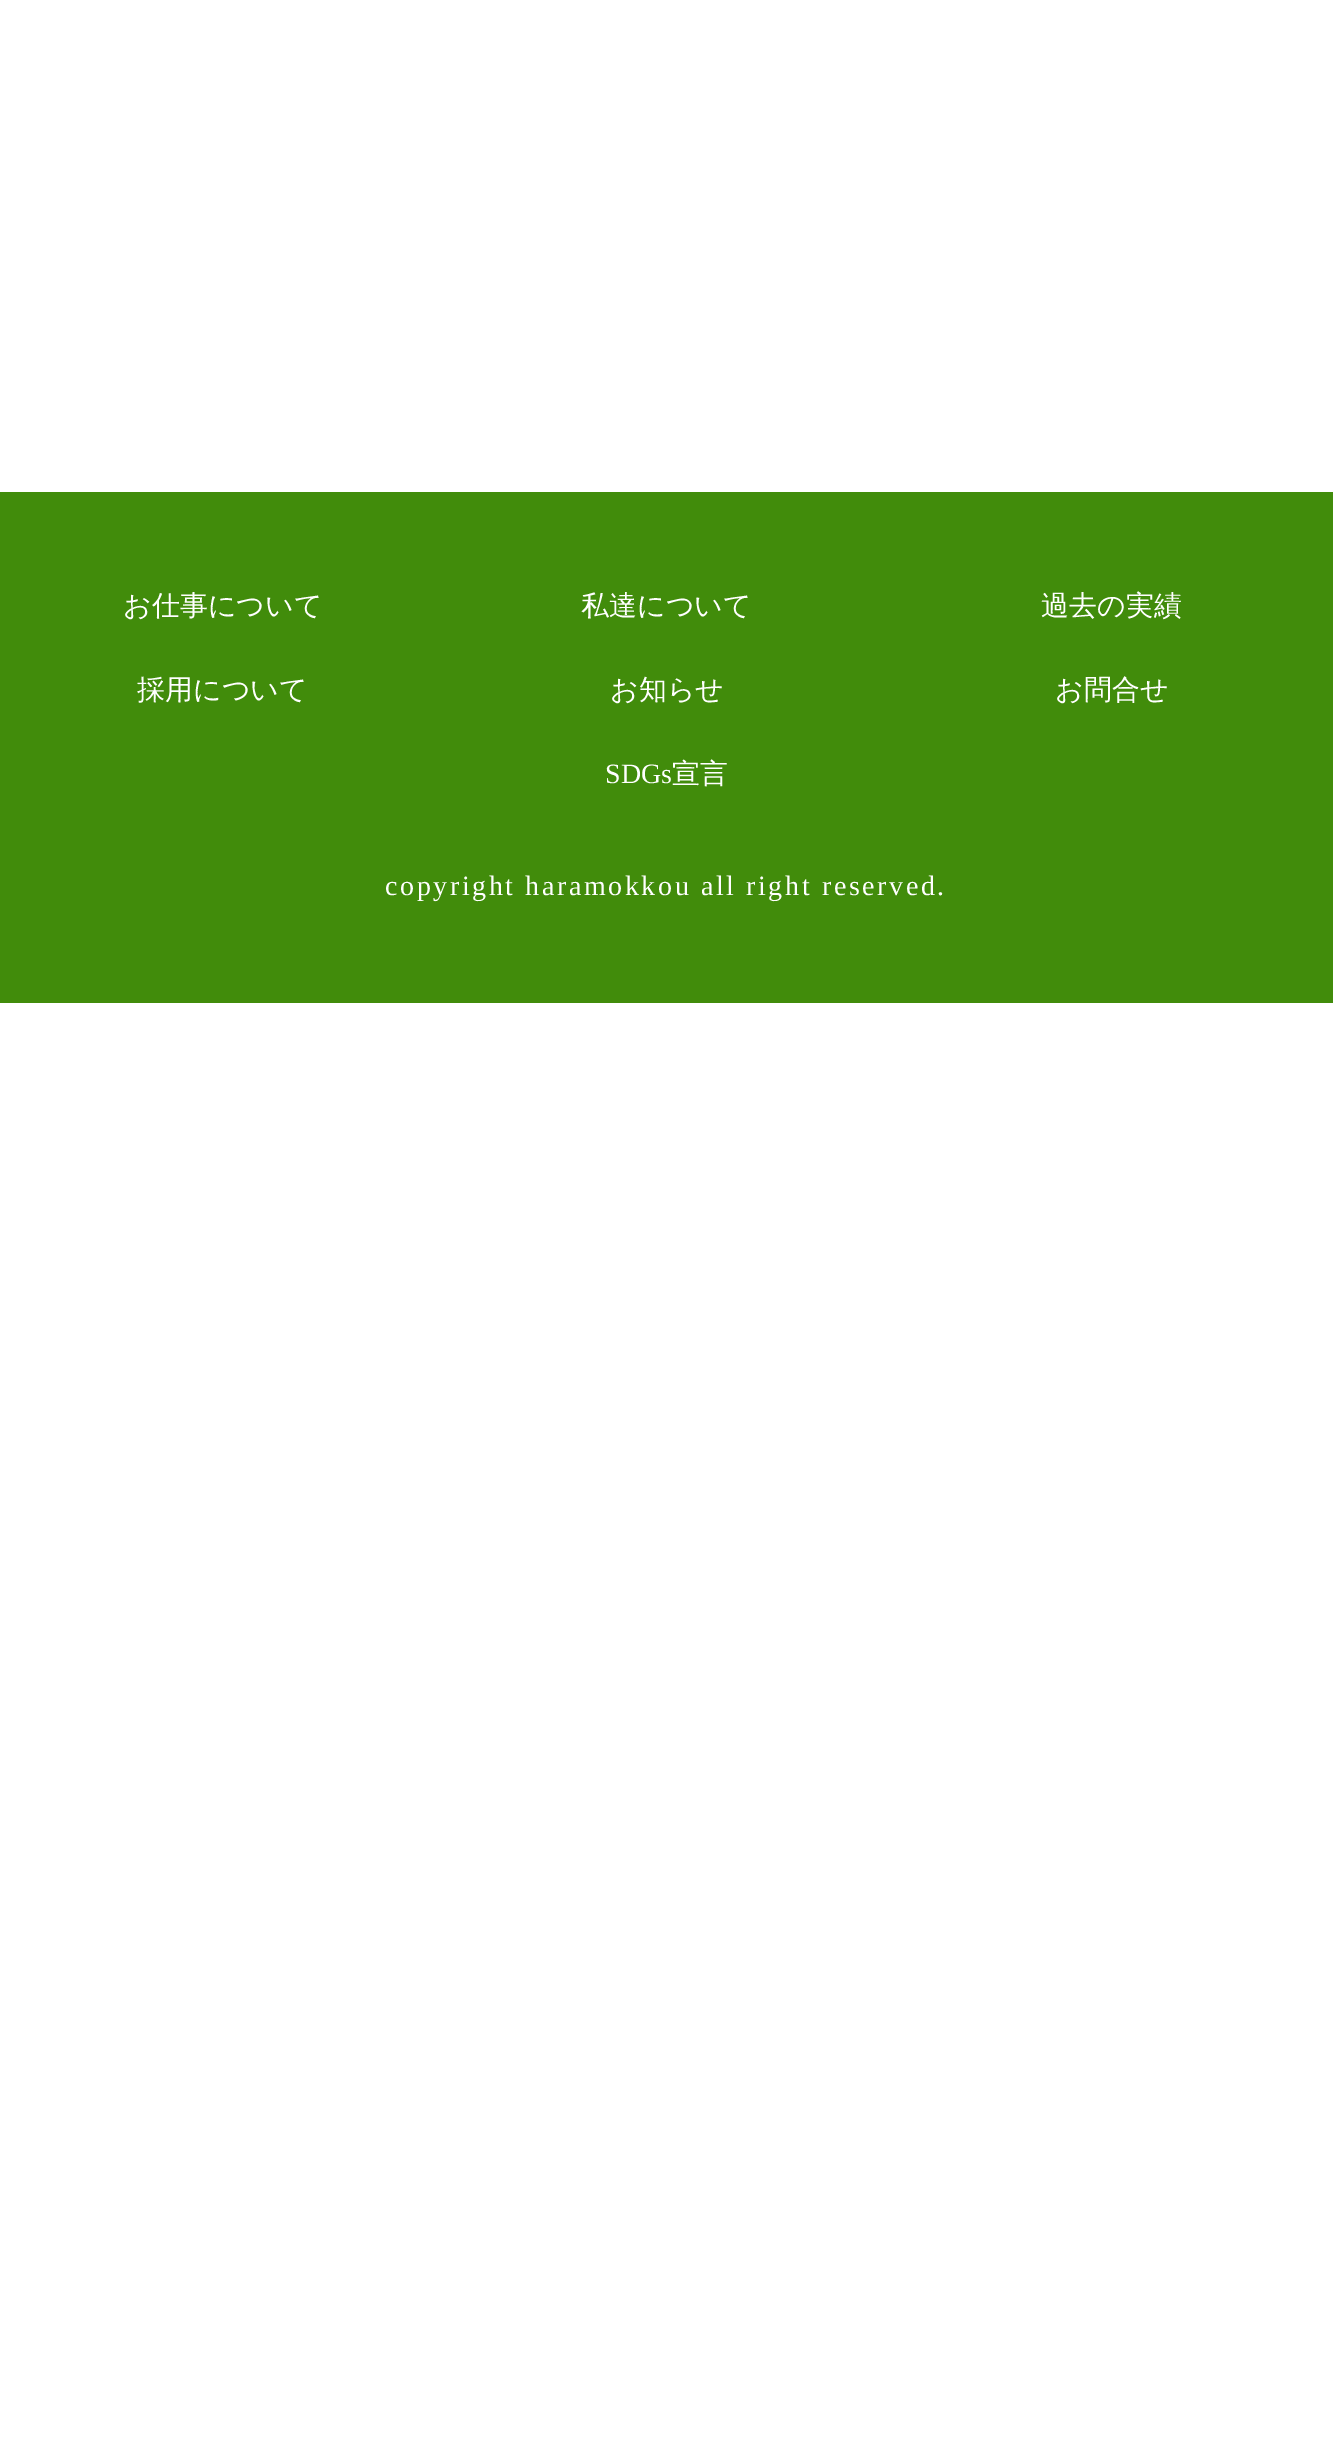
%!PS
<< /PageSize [1333 2460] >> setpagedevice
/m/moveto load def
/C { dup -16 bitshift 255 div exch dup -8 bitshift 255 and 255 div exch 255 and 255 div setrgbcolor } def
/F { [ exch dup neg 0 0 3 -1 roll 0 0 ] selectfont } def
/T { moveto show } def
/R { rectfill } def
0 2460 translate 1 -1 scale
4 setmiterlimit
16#FFFFFF C
0 0 1333 2460 R
16#418C0B C
0 492 1333 511 R
/WenQuanYiZenHei-Medium 28 F
16#FFFFFF C
(お仕事について) 123 615 T
(私達について) 581 615 T
(過去の実績) 1041 615 T
(採用について) 137 699 T
(お知らせ) 610 699 T
(お問合せ) 1055 699 T
/LiberationSerif-Regular 28 F
(SDGs) 605 783 T
/WenQuanYiZenHei-Medium 28 F
(宣言) 672 783 T
/LiberationSerif-Regular 28 F
385 895 m 2.6 0 (copyright haramokkou all right reserved.) ashow
showpage
